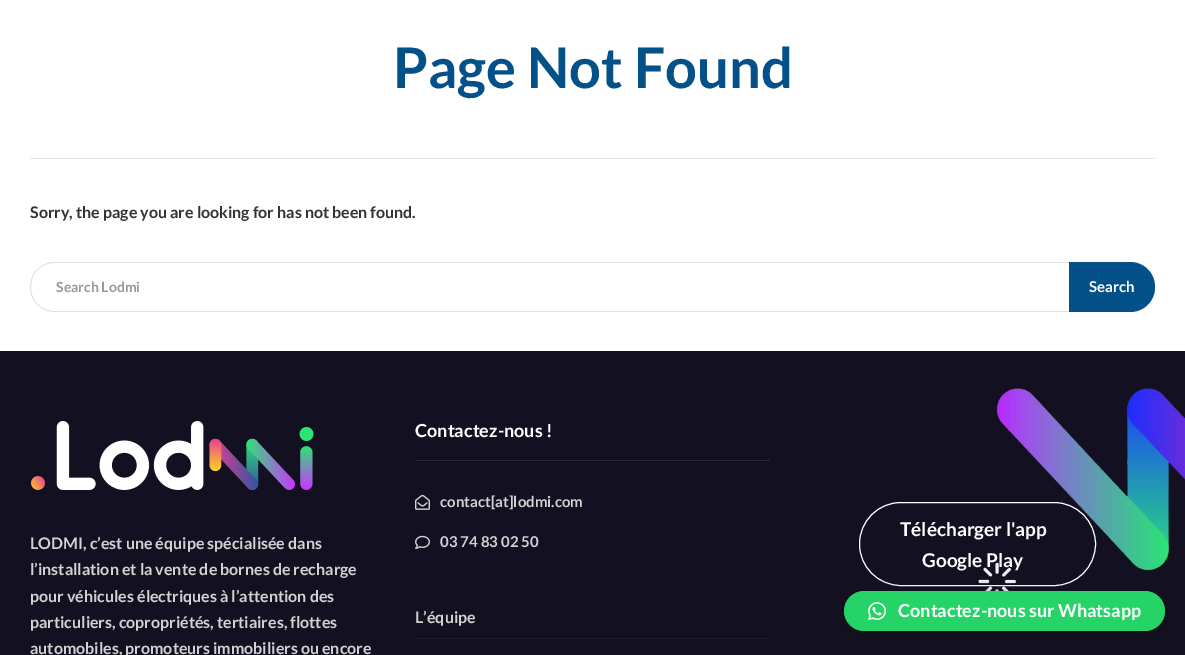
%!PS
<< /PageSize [1185 655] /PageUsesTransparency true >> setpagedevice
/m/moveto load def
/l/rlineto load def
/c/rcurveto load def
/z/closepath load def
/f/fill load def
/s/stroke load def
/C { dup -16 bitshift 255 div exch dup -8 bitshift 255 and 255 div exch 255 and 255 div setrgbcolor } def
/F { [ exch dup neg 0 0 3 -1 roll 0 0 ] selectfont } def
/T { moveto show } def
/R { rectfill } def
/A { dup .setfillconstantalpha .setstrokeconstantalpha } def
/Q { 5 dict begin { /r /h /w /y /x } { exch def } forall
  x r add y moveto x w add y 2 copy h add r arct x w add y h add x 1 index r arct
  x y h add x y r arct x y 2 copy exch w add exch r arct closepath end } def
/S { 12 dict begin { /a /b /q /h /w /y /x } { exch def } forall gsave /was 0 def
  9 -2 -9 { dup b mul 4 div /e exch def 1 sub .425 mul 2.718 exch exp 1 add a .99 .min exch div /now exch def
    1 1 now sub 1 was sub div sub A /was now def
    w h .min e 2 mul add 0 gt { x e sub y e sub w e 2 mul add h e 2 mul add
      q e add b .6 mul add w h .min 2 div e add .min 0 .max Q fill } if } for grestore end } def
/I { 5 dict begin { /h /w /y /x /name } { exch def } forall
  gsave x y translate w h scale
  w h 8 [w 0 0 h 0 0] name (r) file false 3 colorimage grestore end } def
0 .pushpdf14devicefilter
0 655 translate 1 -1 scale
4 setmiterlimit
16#FFFFFF C
0 0 1185 655 R
16#E6E6E6 C
30 158 1125 1 R
/Lato-Bold 56 F
16#045089 C
(Page Not Found) 393 88 T
/Lato-Bold 16 F
16#333333 C
(Sorry, the page you are looking for has not been found.) 30 218 T
16#E2E2E2 C
55 262 m 1014 0 l 0 50 l -1014 0 l -14 0 -25 -11 -25 -25 c 0 -14 11 -25 25 -25 c z 55 263 m 1014 0 l 0 48 l -1014 0 l -32 0 -32 -48 0 -48 c z eofill
/Lato-Bold 14 F
16#999999 C
(Search Lodmi) 56 292 T
16#045089 C
1069 262 m 61 0 l 14 0 25 11 25 25 c 0 14 -11 25 -25 25 c -61 0 l z f
/Lato-Bold 15 F
16#FFFFFF C
(Search) 1089 292 T
16#131121 C
0 351 1185 304 R
(1.rgb) 976 386 209 238 I
(2.rgb) 31 421 283 69 I
/Lato-Bold 16 F
16#D2D2D2 C
(LODMI, c’est une équipe spécialisée dans) 30 549 T
(l’installation et la vente de bornes de recharge) 30 575 T
(pour véhicules électriques à l’attention des) 30 602 T
(particuliers, copropriétés, tertiaires, flottes) 30 628 T
(automobiles, promoteurs immobiliers ou encore) 30 654 T
16#2B2937 C
415 460 355 1 R
/Lato-Bold 18 F
16#FFFFFF C
(Contactez-nous !) 415 437 T
(3.rgb) 415 494 15 16 I
/Lato-Bold 15 F
16#D2D2D2 C
(contact[at]lodmi.com) 440 507 T
(4.rgb) 415 535 15 14 I
(03 74 83 02 50) 440 547 T
16#1F1D2C C
415 638 355 1 R
/Lato-Bold 16 F
16#D2D2D2 C
(L’équipe) 415 623 T
16#FFFFFF C
859.5 502.5 236 83 41.5 Q s
/Lato-Bold 19 F
(Télécharger l'app) 900 536 T
(Google Play) 922 567 T
16#000000 C
844 593 321 40 20 16 .16 S
844 592 321 40 20 3 .06 S
16#25D366 C
844 591 321 40 20 Q f
(5.rgb) 868 602 18 19 I
/Lato-Bold 18 F
16#FFFFFF C
(Contactez-nous sur Whatsapp) 898 617 T
.poppdf14devicefilter showpage
